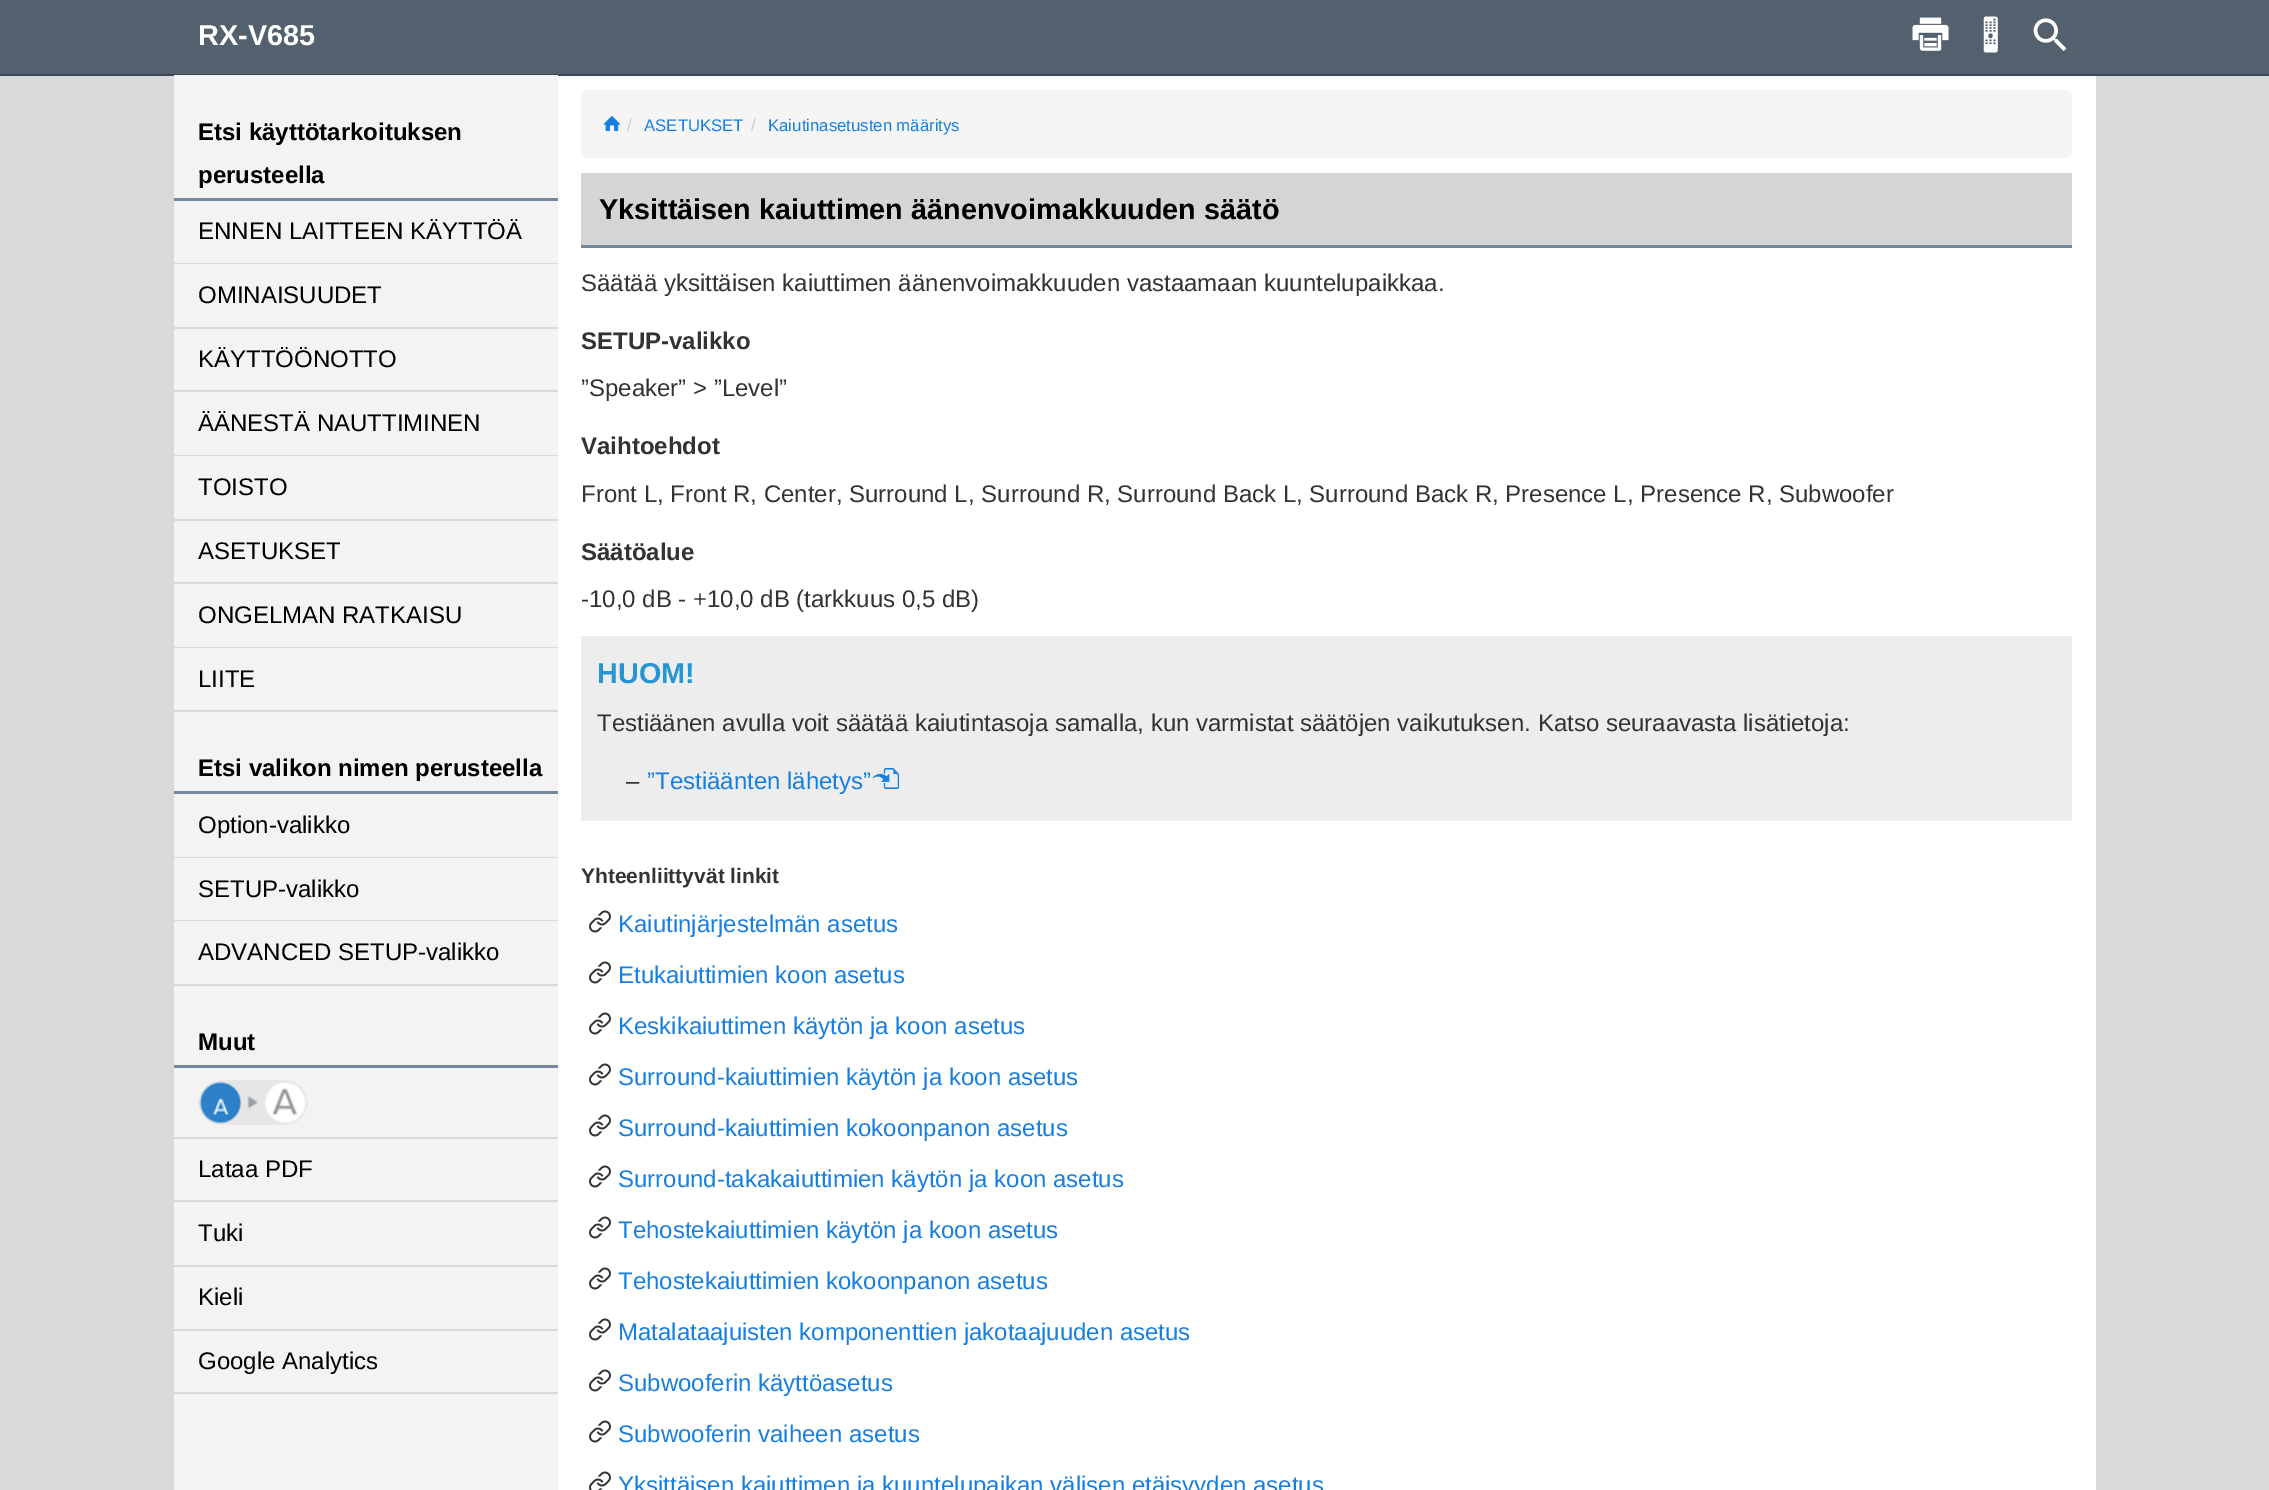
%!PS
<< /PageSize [2269 1490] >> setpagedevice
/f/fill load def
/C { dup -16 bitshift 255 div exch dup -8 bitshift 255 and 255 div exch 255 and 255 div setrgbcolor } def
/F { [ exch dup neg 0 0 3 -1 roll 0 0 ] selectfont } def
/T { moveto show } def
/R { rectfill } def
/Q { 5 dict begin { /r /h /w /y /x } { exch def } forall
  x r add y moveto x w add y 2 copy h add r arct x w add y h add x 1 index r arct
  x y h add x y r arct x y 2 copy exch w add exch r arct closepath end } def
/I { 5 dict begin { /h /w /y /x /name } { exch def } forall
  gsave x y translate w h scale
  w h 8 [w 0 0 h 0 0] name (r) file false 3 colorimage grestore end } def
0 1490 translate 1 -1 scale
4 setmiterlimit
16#D9D9D9 C
0 0 2269 1490 R
16#53606D C
0 0 2269 74 R
16#3A4651 C
0 74 2269 2 R
/LiberationSans-Bold 28.8 F
16#FFFFFF C
(RX-V685) 198 45 T
(1.rgb) 1912 17 37 34 I
(2.rgb) 1983 16 15 37 I
(3.rgb) 2033 18 34 33 I
558 76 1538 1414 R
16#F5F5F5 C
581 90 1491 68 6 Q f
(4.rgb) 603 116 18 15 I
/LiberationSans-Regular 16.75 F
16#CCCCCC C
(/) 627 131 T
16#187FE0 C
(ASETUKSET) 644 131 T
16#CCCCCC C
(/) 751 131 T
16#187FE0 C
(Kaiutinasetusten määritys) 768 131 T
16#D5D5D5 C
581 173 1491 72 R
16#75879B C
581 245 1491 3 R
/LiberationSans-Bold 28.8 F
16#000000 C
(Yksittäisen kaiuttimen äänenvoimakkuuden säätö) 599 219 T
/LiberationSans-Regular 24 F
16#333333 C
(Säätää yksittäisen kaiuttimen äänenvoimakkuuden vastaamaan kuuntelupaikkaa.) 581 291 T
/LiberationSans-Bold 24 F
(SETUP-valikko) 581 349 T
/LiberationSans-Regular 24 F
(”Speaker” > ”Level”) 581 396 T
/LiberationSans-Bold 24 F
(Vaihtoehdot) 581 454 T
/LiberationSans-Regular 24 F
(Front L, Front R, Center, Surround L, Surround R, Surround Back L, Surround Back R, Presence L, Presence R, Subwoofer) 581 502 T
/LiberationSans-Bold 24 F
(Säätöalue) 581 560 T
/LiberationSans-Regular 24 F
(-10,0 dB - +10,0 dB \(tarkkuus 0,5 dB\)) 581 607 T
16#EDEDED C
581 636 1491 185 R
/LiberationSans-Bold 28.8 F
16#2596D1 C
(HUOM!) 597 683 T
/LiberationSans-Regular 24 F
16#333333 C
(Testiäänen avulla voit säätää kaiutintasoja samalla, kun varmistat säätöjen vaikutuksen. Katso seuraavasta lisätietoja:) 597 731 T
(–) 626 789 T
16#187FE0 C
(”Testiäänten lähetys”) 647 789 T
(5.rgb) 872 768 28 21 I
/LiberationSans-Bold 21 F
16#333333 C
(Yhteenliittyvät linkit) 581 883 T
(6.rgb) 589 910 22 23 I
/LiberationSans-Regular 24 F
16#187FE0 C
(Kaiutinjärjestelmän asetus) 618 932 T
(6.rgb) 589 961 22 23 I
(Etukaiuttimien koon asetus) 618 983 T
(6.rgb) 589 1012 22 23 I
(Keskikaiuttimen käytön ja koon asetus) 618 1034 T
(6.rgb) 589 1063 22 23 I
(Surround-kaiuttimien käytön ja koon asetus) 618 1085 T
(6.rgb) 589 1114 22 23 I
(Surround-kaiuttimien kokoonpanon asetus) 618 1136 T
(6.rgb) 589 1165 22 23 I
(Surround-takakaiuttimien käytön ja koon asetus) 618 1187 T
(6.rgb) 589 1216 22 23 I
(Tehostekaiuttimien käytön ja koon asetus) 618 1238 T
(6.rgb) 589 1267 22 23 I
(Tehostekaiuttimien kokoonpanon asetus) 618 1289 T
(6.rgb) 589 1318 22 23 I
(Matalataajuisten komponenttien jakotaajuuden asetus) 618 1340 T
(6.rgb) 589 1369 22 23 I
(Subwooferin käyttöasetus) 618 1391 T
(6.rgb) 589 1420 22 23 I
(Subwooferin vaiheen asetus) 618 1442 T
(7.rgb) 589 1471 22 19 I
(Yksittäisen kaiuttimen ja kuuntelupaikan välisen etäisyyden asetus) 618 1493 T
16#F3F3F4 C
174 75 384 1415 R
16#75879B C
174 198 384 3 R
/LiberationSans-Bold 24 F
16#000000 C
(Etsi käyttötarkoituksen) 198 140 T
(perusteella) 198 183 T
16#D9D9D9 C
174 263 384 1 R
/LiberationSans-Regular 24 F
16#000000 C
(ENNEN LAITTEEN KÄYTTÖÄ) 198 239 T
16#D9D9D9 C
174 327 384 2 R
16#000000 C
(OMINAISUUDET) 198 303 T
16#D9D9D9 C
174 390 384 2 R
16#000000 C
(KÄYTTÖÖNOTTO) 198 367 T
16#D9D9D9 C
174 455 384 1 R
16#000000 C
(ÄÄNESTÄ NAUTTIMINEN) 198 431 T
16#D9D9D9 C
174 519 384 2 R
16#000000 C
(TOISTO) 198 495 T
16#D9D9D9 C
174 582 384 2 R
16#000000 C
(ASETUKSET) 198 559 T
16#D9D9D9 C
174 647 384 1 R
16#000000 C
(ONGELMAN RATKAISU) 198 623 T
16#D9D9D9 C
174 710 384 2 R
16#000000 C
(LIITE) 198 687 T
16#75879B C
174 791 384 3 R
/LiberationSans-Bold 24 F
16#000000 C
(Etsi valikon nimen perusteella) 198 776 T
16#D9D9D9 C
174 857 384 1 R
/LiberationSans-Regular 24 F
16#000000 C
(Option-valikko) 198 833 T
16#D9D9D9 C
174 920 384 1 R
16#000000 C
(SETUP-valikko) 198 897 T
16#D9D9D9 C
174 984 384 2 R
16#000000 C
(ADVANCED SETUP-valikko) 198 960 T
16#75879B C
174 1065 384 3 R
/LiberationSans-Bold 24 F
16#000000 C
(Muut) 198 1050 T
16#D9D9D9 C
174 1137 384 2 R
(8.rgb) 198 1080 110 45 I
174 1200 384 2 R
/LiberationSans-Regular 24 F
16#000000 C
(Lataa PDF) 198 1177 T
16#D9D9D9 C
174 1265 384 2 R
16#000000 C
(Tuki) 198 1241 T
16#D9D9D9 C
174 1329 384 2 R
16#000000 C
(Kieli) 198 1305 T
16#D9D9D9 C
174 1392 384 2 R
16#000000 C
(Google Analytics) 198 1369 T
showpage
